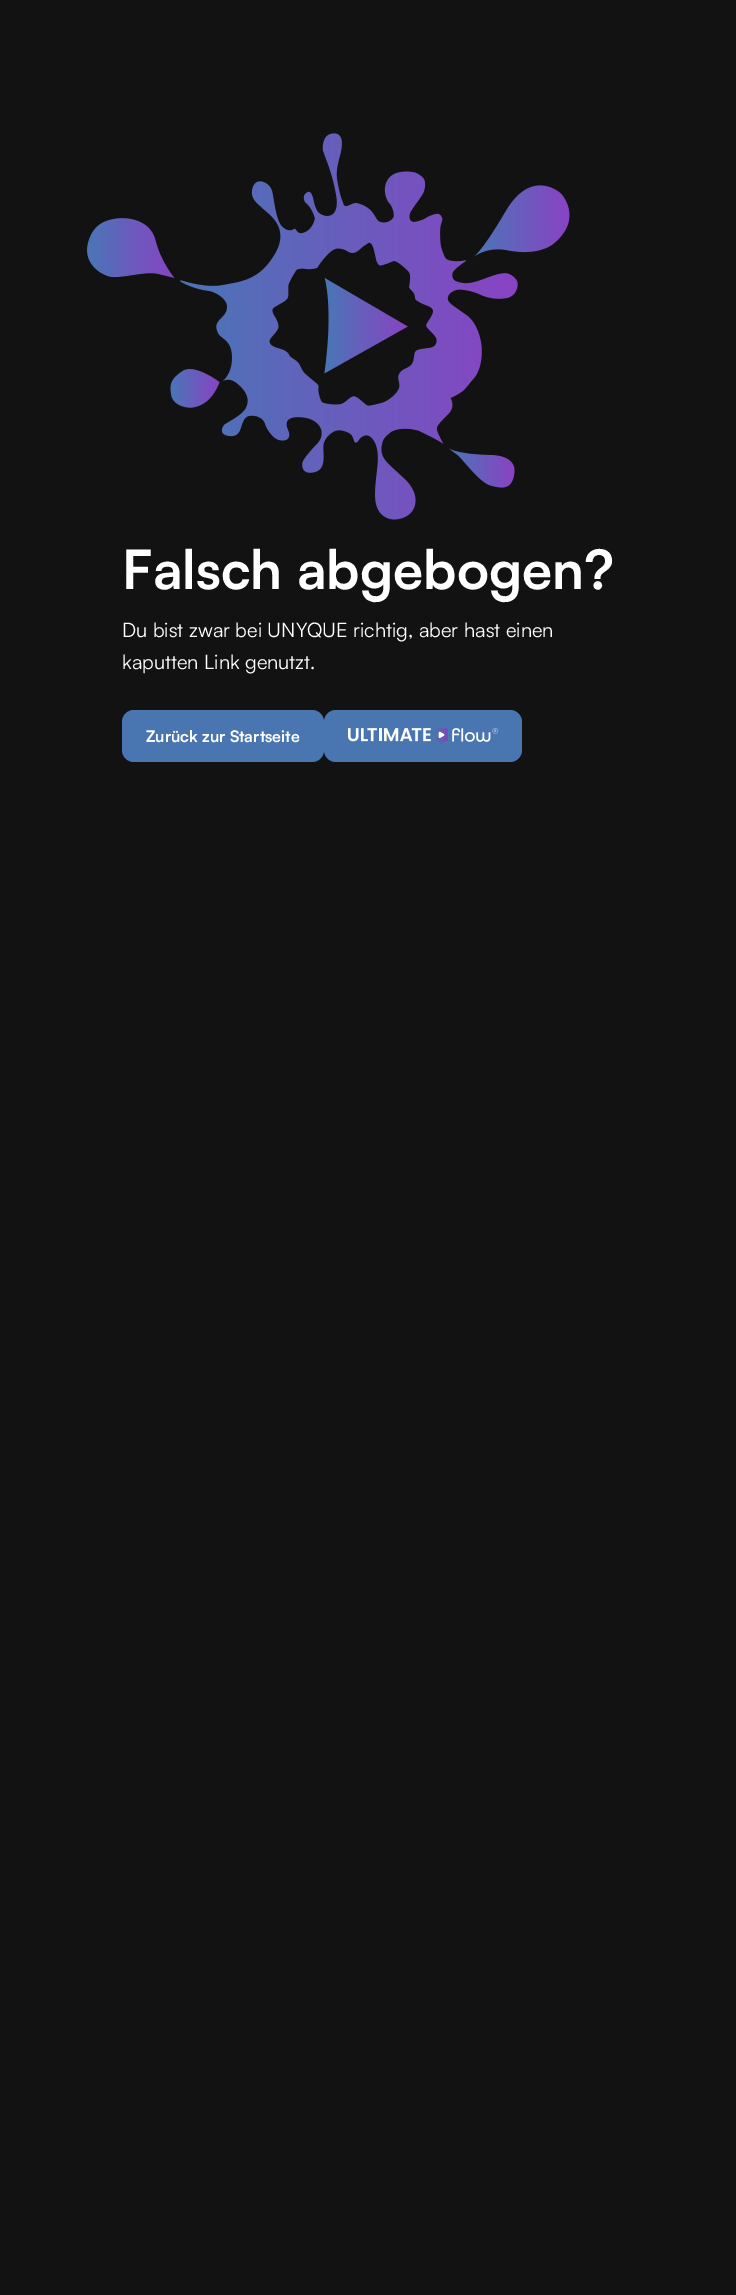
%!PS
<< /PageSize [736 2295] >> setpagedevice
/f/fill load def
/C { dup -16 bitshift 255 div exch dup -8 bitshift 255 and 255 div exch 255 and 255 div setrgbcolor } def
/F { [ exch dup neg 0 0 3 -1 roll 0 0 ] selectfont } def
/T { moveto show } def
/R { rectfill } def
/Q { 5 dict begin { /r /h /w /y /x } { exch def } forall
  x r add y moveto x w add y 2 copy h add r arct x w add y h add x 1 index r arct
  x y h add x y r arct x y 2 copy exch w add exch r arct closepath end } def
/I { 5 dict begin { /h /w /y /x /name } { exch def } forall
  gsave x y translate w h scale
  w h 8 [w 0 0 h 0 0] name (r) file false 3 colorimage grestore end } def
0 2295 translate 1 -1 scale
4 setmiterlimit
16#121212 C
0 0 736 2295 R
(1.rgb) 87 133 483 387 I
/Satoshi-Bold 54 F
16#FFFFFF C
(Falsch abgebogen?) 122 589 T
/Satoshi-Regular 20 F
(Du bist zwar bei UNYQUE richtig, aber hast einen) 122 637 T
(kaputten Link genutzt.) 122 669 T
16#4976B1 C
122 710 202 52 12 Q f
/Satoshi-Bold 16 F
16#FFFFFF C
(Zurück zur Startseite) 146 742 T
16#4976B1 C
324 710 198 52 12 Q f
(2.rgb) 348 728 150 16 I
showpage
